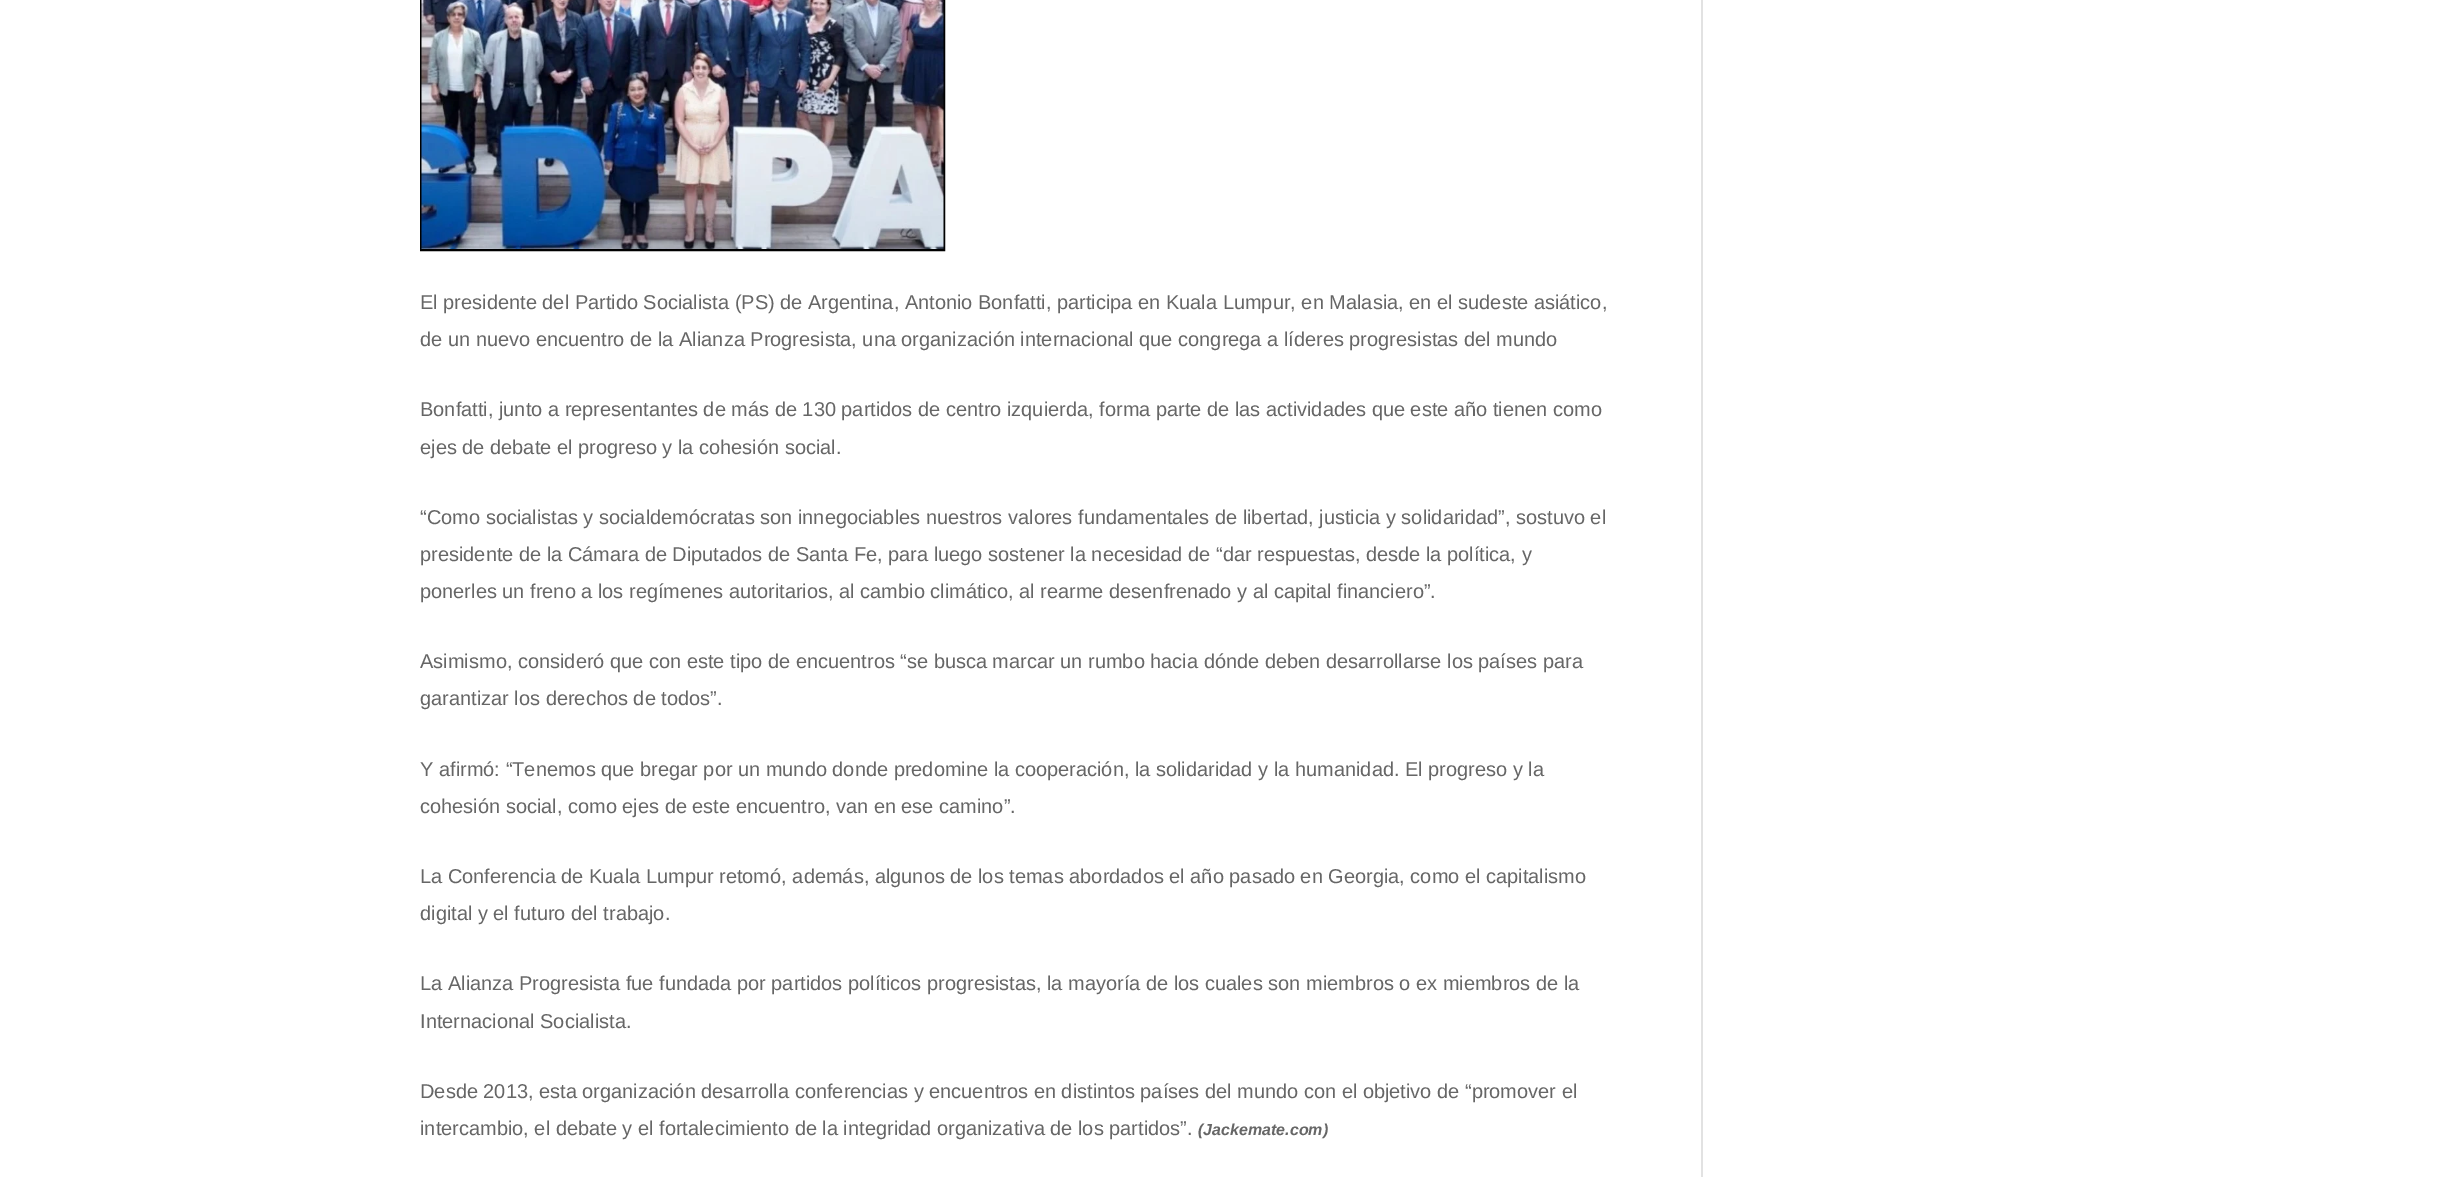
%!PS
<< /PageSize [2459 1177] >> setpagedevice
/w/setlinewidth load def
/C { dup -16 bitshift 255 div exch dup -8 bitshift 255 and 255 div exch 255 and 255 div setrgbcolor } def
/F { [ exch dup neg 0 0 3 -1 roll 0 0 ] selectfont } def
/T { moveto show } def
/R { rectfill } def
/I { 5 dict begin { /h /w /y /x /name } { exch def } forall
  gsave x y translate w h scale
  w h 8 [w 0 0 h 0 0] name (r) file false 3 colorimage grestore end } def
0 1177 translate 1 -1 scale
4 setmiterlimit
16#FFFFFF C
0 0 2459 1177 R
16#000000 C
2 w
421 -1 523 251 rectstroke
(1.rgb) 421 0 523 249 I
/LiberationSans-Regular 20 F
16#666666 C
(El presidente del Partido Socialista \(PS\) de Argentina, Antonio Bonfatti, participa en Kuala Lumpur, en Malasia, en el sudeste asiático,) 420 309 T
(de un nuevo encuentro de la Alianza Progresista, una organización internacional que congrega a líderes progresistas del mundo) 420 346 T
(Bonfatti, junto a representantes de más de 130 partidos de centro izquierda, forma parte de las actividades que este año tienen como) 420 416 T
(ejes de debate el progreso y la cohesión social.) 420 454 T
(“Como socialistas y socialdemócratas son innegociables nuestros valores fundamentales de libertad, justicia y solidaridad”, sostuvo el) 420 524 T
(presidente de la Cámara de Diputados de Santa Fe, para luego sostener la necesidad de “dar respuestas, desde la política, y) 420 561 T
(ponerles un freno a los regímenes autoritarios, al cambio climático, al rearme desenfrenado y al capital financiero”) 420 598 T
(.) 1430 598 T
(Asimismo, consideró que con este tipo de encuentros “se busca marcar un rumbo hacia dónde deben desarrollarse los países para) 420 668 T
(garantizar los derechos de todos”.) 420 705 T
(Y afirmó: “Tenemos que bregar por un mundo donde predomine la cooperación, la solidaridad y la humanidad. El progreso y la) 420 776 T
(cohesión social, como ejes de este encuentro, van en ese camino”.) 420 813 T
(La Conferencia de Kuala Lumpur retomó, además, algunos de los temas abordados el año pasado en Georgia, como el capitalismo) 420 883 T
(digital y el futuro del trabajo.) 420 920 T
(La Alianza Progresista fue fundada por partidos políticos progresistas, la mayoría de los cuales son miembros o ex miembros de la) 420 990 T
(Internacional Socialista.) 420 1028 T
(Desde 2013, esta organización desarrolla conferencias y encuentros en distintos países del mundo con el objetivo de “promover el) 420 1098 T
(intercambio, el debate y el fortalecimiento de la integridad organizativa de los partidos”.) 420 1135 T
/LiberationSans-BoldItalic 16 F
(\(Jackemate.com\)) 1198 1135 T
16#E2E2E2 C
1701 0 2 1177 R
showpage
